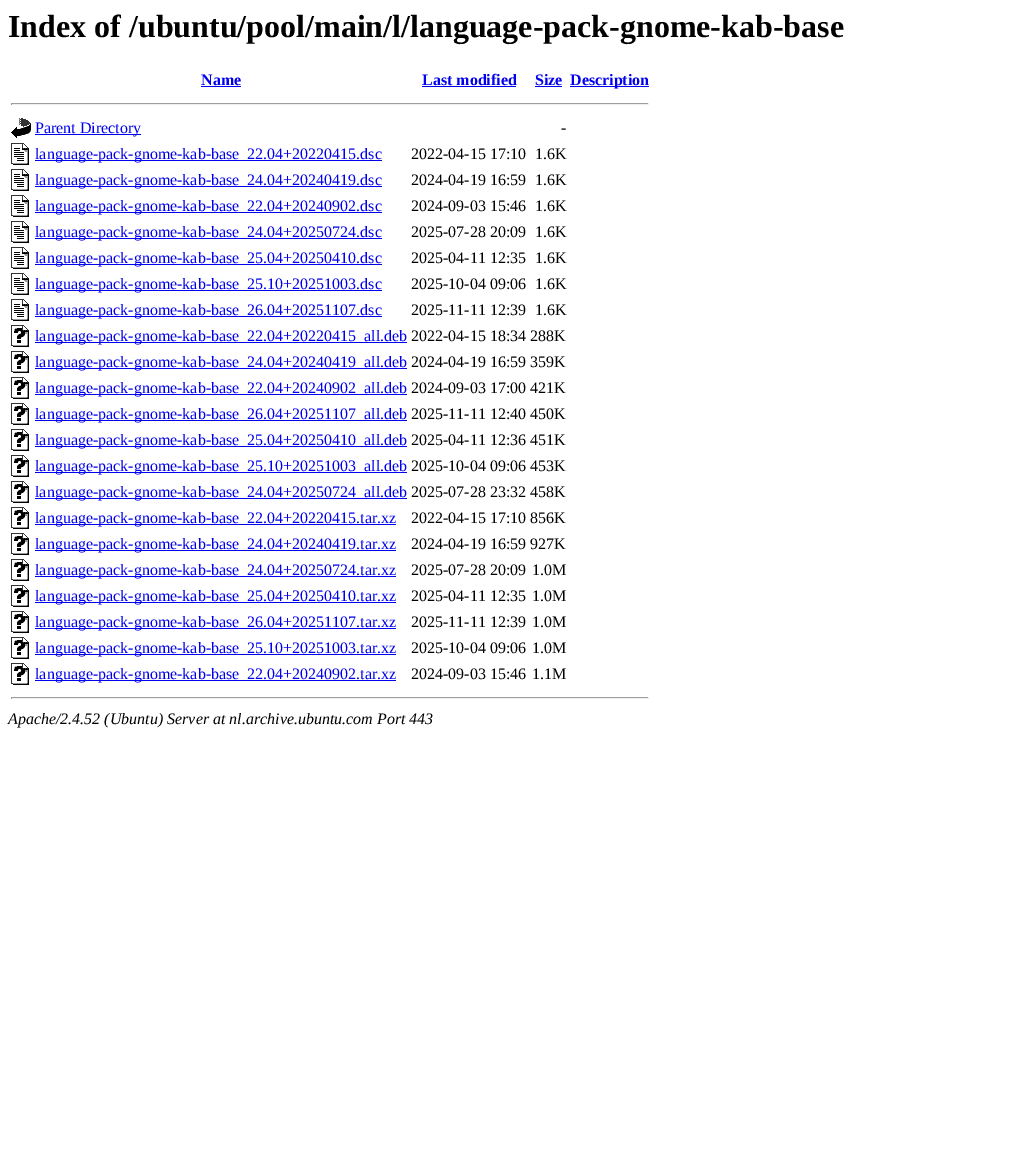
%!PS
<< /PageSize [1018 1172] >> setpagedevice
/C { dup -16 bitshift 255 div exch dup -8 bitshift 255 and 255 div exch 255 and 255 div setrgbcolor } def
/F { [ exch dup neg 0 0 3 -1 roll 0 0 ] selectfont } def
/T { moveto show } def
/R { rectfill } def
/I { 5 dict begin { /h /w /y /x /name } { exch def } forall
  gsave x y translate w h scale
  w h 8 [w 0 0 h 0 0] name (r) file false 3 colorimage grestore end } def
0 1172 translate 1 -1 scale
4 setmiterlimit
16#FFFFFF C
0 0 1018 1172 R
/LiberationSerif-Bold 32 F
16#000000 C
(Index of /ubuntu/pool/main/l/language-pack-gnome-kab-base) 8 37 T
/LiberationSerif-Bold 16 F
16#0000EE C
(Name) 201 85 T
201 86 40 1 R
(Last modified) 422 85 T
422 86 94 1 R
(Size) 535 85 T
535 86 27 1 R
570 86 79 1 R
(Description) 570 85 T
16#9F9F9F C
11 103 638 1 R
16#EEEEEE C
648 103 1 2 R
11 104 638 1 R
16#9F9F9F C
11 103 1 2 R
(1.rgb) 11 118 20 20 I
16#0000EE C
35 134 106 1 R
/LiberationSerif-Regular 16 F
(Parent Directory) 35 133 T
16#000000 C
(-) 561 133 T
(2.rgb) 11 143 18 22 I
16#0000EE C
35 160 347 1 R
(language-pack-gnome-kab-base_22.04+20220415.dsc) 35 159 T
16#000000 C
(2022-04-15 17:10) 411 159 T
(1.6K) 535 159 T
(2.rgb) 11 169 18 22 I
16#0000EE C
35 186 347 1 R
(language-pack-gnome-kab-base_24.04+20240419.dsc) 35 185 T
16#000000 C
(2024-04-19 16:59) 411 185 T
(1.6K) 535 185 T
(2.rgb) 11 195 18 22 I
16#0000EE C
35 212 347 1 R
(language-pack-gnome-kab-base_22.04+20240902.dsc) 35 211 T
16#000000 C
(2024-09-03 15:46) 411 211 T
(1.6K) 535 211 T
(2.rgb) 11 221 18 22 I
16#0000EE C
35 238 347 1 R
(language-pack-gnome-kab-base_24.04+20250724.dsc) 35 237 T
16#000000 C
(2025-07-28 20:09) 411 237 T
(1.6K) 535 237 T
(2.rgb) 11 247 18 22 I
16#0000EE C
35 264 347 1 R
(language-pack-gnome-kab-base_25.04+20250410.dsc) 35 263 T
16#000000 C
(2025-04-11 12:35) 411 263 T
(1.6K) 535 263 T
(2.rgb) 11 273 18 22 I
16#0000EE C
35 290 347 1 R
(language-pack-gnome-kab-base_25.10+20251003.dsc) 35 289 T
16#000000 C
(2025-10-04 09:06) 411 289 T
(1.6K) 535 289 T
(2.rgb) 11 299 18 22 I
16#0000EE C
35 316 347 1 R
(language-pack-gnome-kab-base_26.04+20251107.dsc) 35 315 T
16#000000 C
(2025-11-11 12:39) 411 315 T
(1.6K) 535 315 T
(3.rgb) 11 325 18 22 I
16#0000EE C
35 342 372 1 R
(language-pack-gnome-kab-base_22.04+20220415_all.deb) 35 341 T
16#000000 C
(2022-04-15 18:34 288K) 411 341 T
(3.rgb) 11 351 18 22 I
16#0000EE C
35 368 372 1 R
(language-pack-gnome-kab-base_24.04+20240419_all.deb) 35 367 T
16#000000 C
(2024-04-19 16:59 359K) 411 367 T
(3.rgb) 11 377 18 22 I
16#0000EE C
35 394 372 1 R
(language-pack-gnome-kab-base_22.04+20240902_all.deb) 35 393 T
16#000000 C
(2024-09-03 17:00 421K) 411 393 T
(3.rgb) 11 403 18 22 I
16#0000EE C
35 420 372 1 R
(language-pack-gnome-kab-base_26.04+20251107_all.deb) 35 419 T
16#000000 C
(2025-11-11 12:40 450K) 411 419 T
(3.rgb) 11 429 18 22 I
16#0000EE C
35 446 372 1 R
(language-pack-gnome-kab-base_25.04+20250410_all.deb) 35 445 T
16#000000 C
(2025-04-11 12:36 451K) 411 445 T
(3.rgb) 11 455 18 22 I
16#0000EE C
35 472 372 1 R
(language-pack-gnome-kab-base_25.10+20251003_all.deb) 35 471 T
16#000000 C
(2025-10-04 09:06 453K) 411 471 T
(3.rgb) 11 481 18 22 I
16#0000EE C
35 498 372 1 R
(language-pack-gnome-kab-base_24.04+20250724_all.deb) 35 497 T
16#000000 C
(2025-07-28 23:32 458K) 411 497 T
(3.rgb) 11 507 18 22 I
16#0000EE C
35 524 361 1 R
(language-pack-gnome-kab-base_22.04+20220415.tar.xz) 35 523 T
16#000000 C
(2022-04-15 17:10 856K) 411 523 T
(3.rgb) 11 533 18 22 I
16#0000EE C
35 550 361 1 R
(language-pack-gnome-kab-base_24.04+20240419.tar.xz) 35 549 T
16#000000 C
(2024-04-19 16:59 927K) 411 549 T
(3.rgb) 11 559 18 22 I
16#0000EE C
35 576 361 1 R
(language-pack-gnome-kab-base_24.04+20250724.tar.xz) 35 575 T
16#000000 C
(2025-07-28 20:09) 411 575 T
(1.0M) 532 575 T
(3.rgb) 11 585 18 22 I
16#0000EE C
35 602 361 1 R
(language-pack-gnome-kab-base_25.04+20250410.tar.xz) 35 601 T
16#000000 C
(2025-04-11 12:35) 411 601 T
(1.0M) 532 601 T
(3.rgb) 11 611 18 22 I
16#0000EE C
35 628 361 1 R
(language-pack-gnome-kab-base_26.04+20251107.tar.xz) 35 627 T
16#000000 C
(2025-11-11 12:39) 411 627 T
(1.0M) 532 627 T
(3.rgb) 11 637 18 22 I
16#0000EE C
35 654 361 1 R
(language-pack-gnome-kab-base_25.10+20251003.tar.xz) 35 653 T
16#000000 C
(2025-10-04 09:06) 411 653 T
(1.0M) 532 653 T
(3.rgb) 11 663 18 22 I
16#0000EE C
35 680 361 1 R
(language-pack-gnome-kab-base_22.04+20240902.tar.xz) 35 679 T
16#000000 C
(2024-09-03 15:46) 411 679 T
(1.1M) 532 679 T
16#9F9F9F C
11 697 638 1 R
16#EEEEEE C
648 697 1 2 R
11 698 638 1 R
16#9F9F9F C
11 697 1 2 R
/LiberationSerif-Italic 16 F
16#000000 C
(Apache/2.4.52 \(Ubuntu\) Server at nl.archive.ubuntu.com Port 443) 8 724 T
showpage
